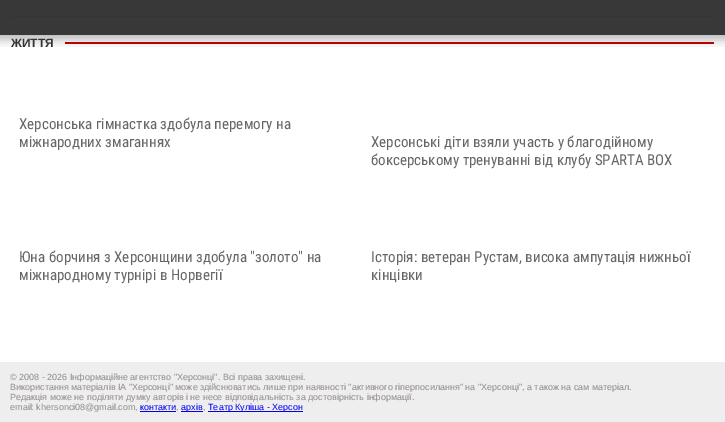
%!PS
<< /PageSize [725 422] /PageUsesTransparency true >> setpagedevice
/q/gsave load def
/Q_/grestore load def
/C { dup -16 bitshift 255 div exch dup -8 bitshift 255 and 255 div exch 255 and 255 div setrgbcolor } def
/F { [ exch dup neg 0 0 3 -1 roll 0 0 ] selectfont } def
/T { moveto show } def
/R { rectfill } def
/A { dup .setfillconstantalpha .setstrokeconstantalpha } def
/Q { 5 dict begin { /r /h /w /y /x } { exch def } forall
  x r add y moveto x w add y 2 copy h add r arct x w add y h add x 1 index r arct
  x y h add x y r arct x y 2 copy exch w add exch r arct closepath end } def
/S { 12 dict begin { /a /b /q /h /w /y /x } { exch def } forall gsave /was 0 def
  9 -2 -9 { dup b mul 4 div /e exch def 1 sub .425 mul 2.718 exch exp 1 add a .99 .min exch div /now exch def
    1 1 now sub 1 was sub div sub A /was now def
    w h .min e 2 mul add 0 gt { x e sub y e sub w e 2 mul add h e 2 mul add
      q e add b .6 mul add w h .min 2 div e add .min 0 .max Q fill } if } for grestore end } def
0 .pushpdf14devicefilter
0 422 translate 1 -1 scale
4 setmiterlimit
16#FFFFFF C
0 0 725 422 R
16#383838 C
0 0 725 35 R
16#353535 C
10 16 705 1 R
16#C60304 C
65 42 649 2 R
q
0 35 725 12 rectclip
16#000000 C
-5 -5 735 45 0 5 .27 S
Q_
/LiberationSans-Bold 12 F
16#333333 C
(ЖИТТЯ) 11 47 T
/RobotoCondensed-Regular 15 F
16#65656A C
(Херсонська гімнастка здобула перемогу на) 19 129 T
(міжнародних змаганнях) 19 147 T
(Херсонські діти взяли участь у благодійному) 371 147 T
(боксерському тренуванні від клубу SPARTA BOX) 371 165 T
(Юна борчиня з Херсонщини здобула "золото" на) 19 262 T
(міжнародному турнірі в Норвегії) 19 280 T
(Історія: ветеран Рустам, висока ампутація нижньої) 371 262 T
(кінцівки) 371 280 T
16#EEEEEE C
0 362 725 60 R
/LiberationSans-Regular 9 F
16#918A8A C
(© 2008 - 2026 Інформаційне агентство "Херсонці". Всі права захищені.) 10 380 T
(Використання матеріалів ІА "Херсонці" може здійснюватись лише при наявності "активного гіперпосилання" на "Херсонці", а також на сам матеріал.) 10 390 T
(Редакція може не поділяти думку авторів і не несе відповідальність за достовірність інформації.) 10 400 T
(email: khersonci08@gmail.com,) 10 410 T
16#0000EE C
(контакти) 140 410 T
140 411 36 1 R
16#918A8A C
(,) 176 410 T
16#0000EE C
181 411 22 1 R
(архів) 181 410 T
16#918A8A C
(,) 203 410 T
16#0000EE C
208 411 95 1 R
(Театр Куліша - Херсон) 208 410 T
.poppdf14devicefilter showpage
